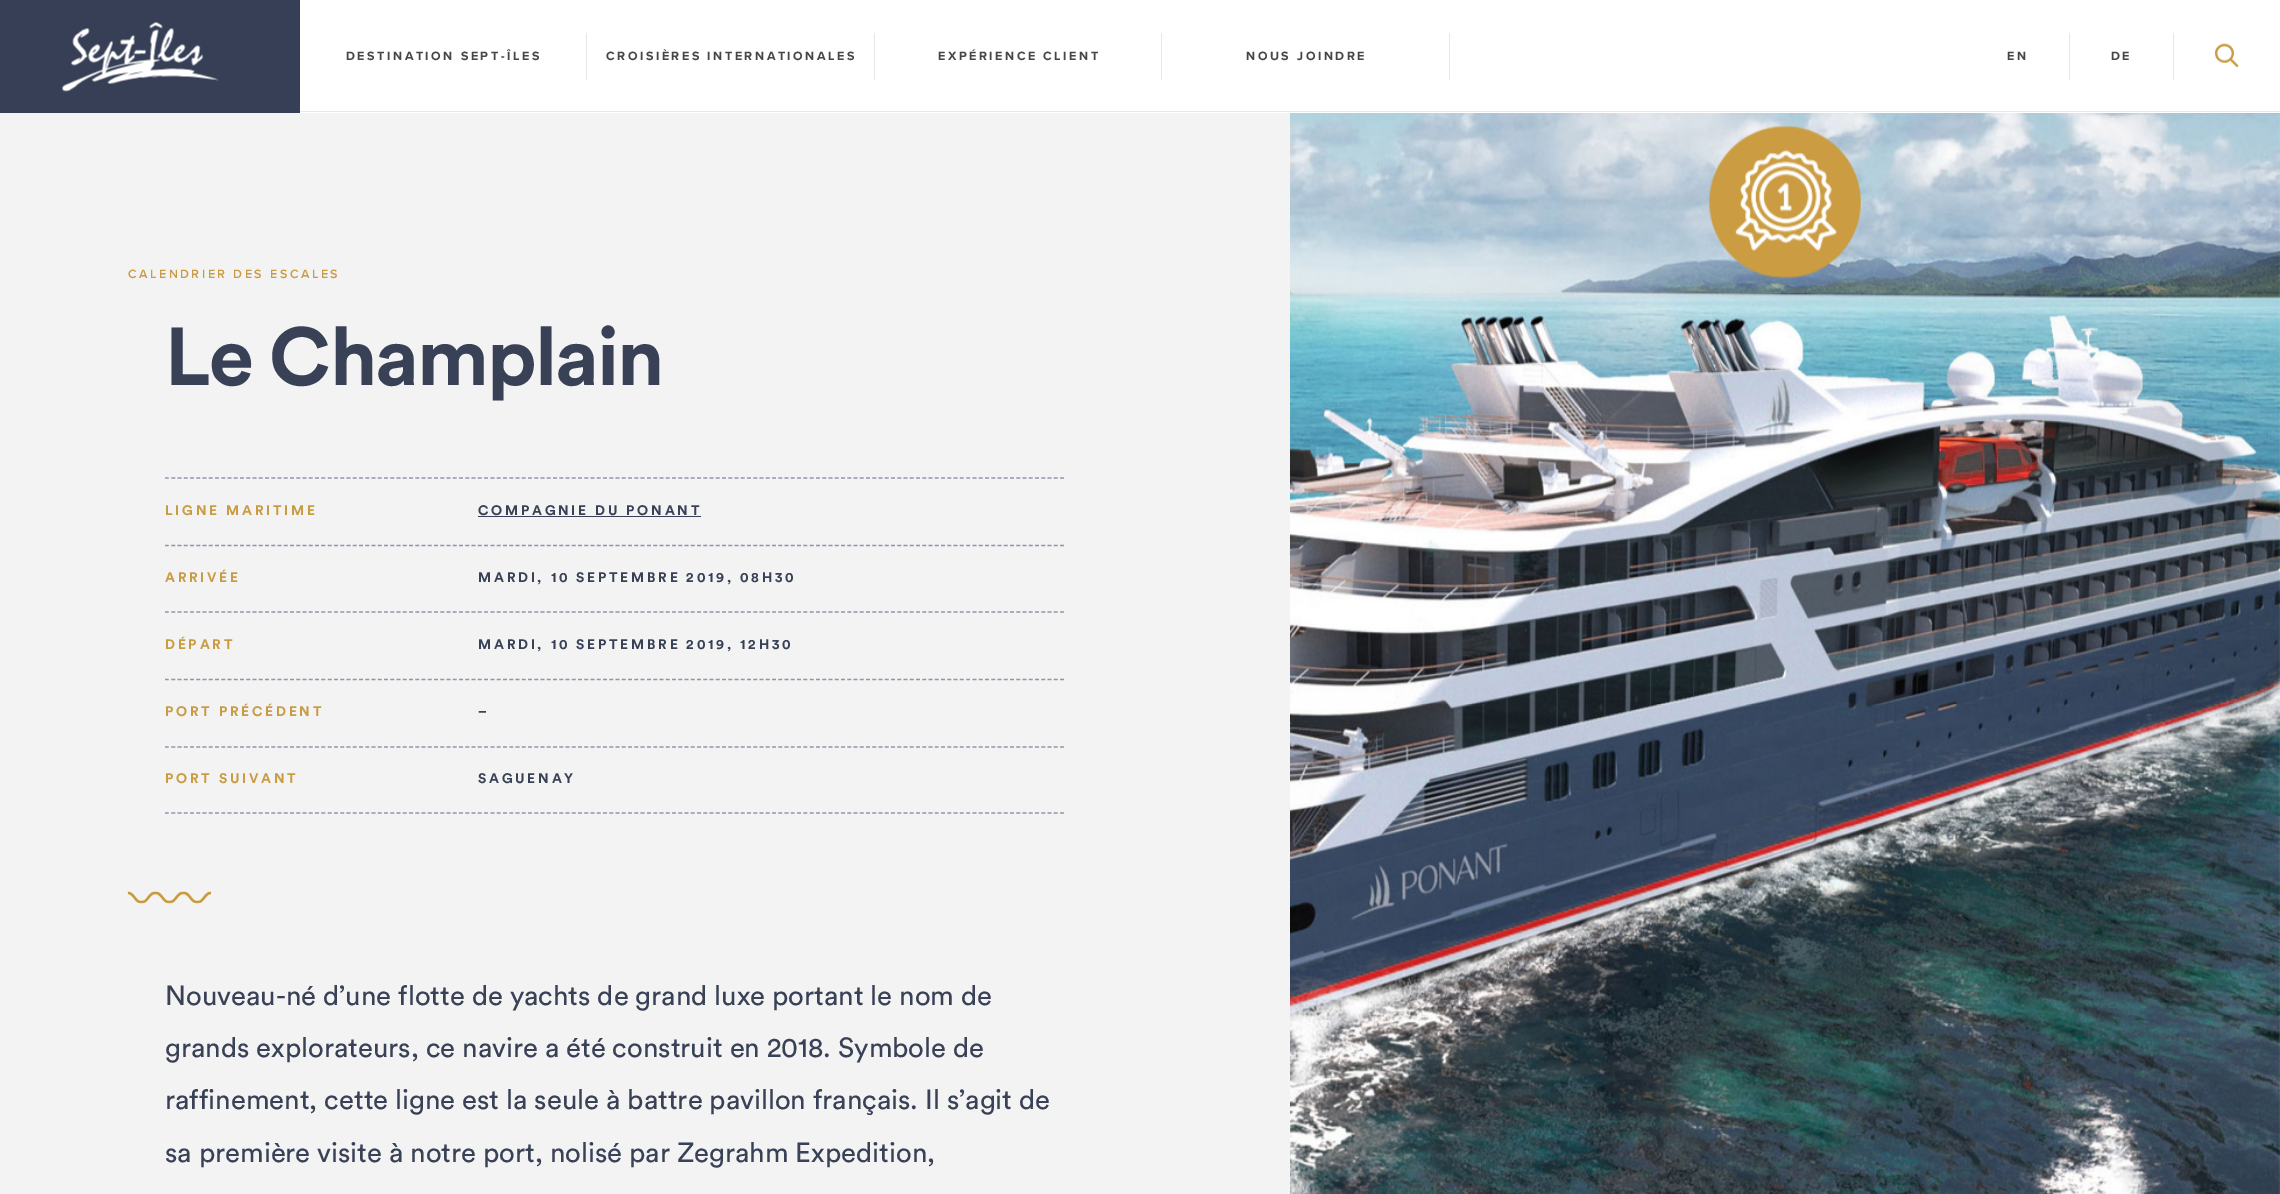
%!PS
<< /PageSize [2280 1194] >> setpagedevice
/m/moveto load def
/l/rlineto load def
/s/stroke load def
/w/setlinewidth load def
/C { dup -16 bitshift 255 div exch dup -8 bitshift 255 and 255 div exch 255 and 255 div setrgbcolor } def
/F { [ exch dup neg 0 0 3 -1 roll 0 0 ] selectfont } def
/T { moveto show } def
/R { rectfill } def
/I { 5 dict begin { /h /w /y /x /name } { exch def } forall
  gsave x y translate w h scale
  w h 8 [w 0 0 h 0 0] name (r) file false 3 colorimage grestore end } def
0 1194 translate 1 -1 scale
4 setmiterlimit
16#F3F3F3 C
0 0 2280 1194 R
16#FFFFFF C
300 0 1980 113 R
16#E8E8E8 C
300 111 1980 1 R
16#373F56 C
0 0 300 113 R
(1.rgb) 62 22 157 70 I
/ProximaNova-Bold 12.5 F
16#454646 C
346 60 m 2.5 0 (DESTINATION SEPT-ÎLES) ashow
16#E8E8E8 C
586 33 1 47 R
16#454646 C
606 60 m 2.5 0 (CROISIÈRES INTERNATIONALES) ashow
16#E8E8E8 C
874 33 1 47 R
16#454646 C
938 60 m 2.5 0 (EXPÉRIENCE CLIENT) ashow
16#E8E8E8 C
1161 33 1 47 R
16#454646 C
1246 60 m 2.5 0 (NOUS JOINDRE) ashow
16#E8E8E8 C
1449 33 1 47 R
16#454646 C
2007 60 m 2.5 0 (EN) ashow
16#E8E8E8 C
2069 33 1 47 R
16#454646 C
2111 60 m 2.5 0 (DE) ashow
16#E8E8E8 C
2173 33 1 47 R
(2.rgb) 2215 43 24 25 I
/ProximaNova-SemiBold 12.5 F
16#C99B42 C
128 278 m 2.5 0 (CALENDRIER DES ESCALES) ashow
/Circular-Bold 81.25 F
16#394157 C
165 385 m -2 0 (Le Champlain) ashow
16#8D96AA C
1.2 w
[3.75 2.51] 0 setdash
165 478 m 900 0 l s
165 545.5 m 900 0 l s
/Circular-Bold 13.75 F
16#C99B42 C
165 515 m 2.75 0 (LIGNE MARITIME) ashow
16#394157 C
478 515 m 2.75 0 (COMPAGNIE DU PONANT) ashow
478 516 223 1 R
16#8D96AA C
165 612 m 900 0 l s
16#C99B42 C
165 582 m 2.75 0 (ARRIVÉE) ashow
16#394157 C
478 582 m 2.75 0 (MARDI, 10 SEPTEMBRE 2019, 08H30) ashow
16#8D96AA C
165 679.5 m 900 0 l s
16#C99B42 C
165 649 m 2.75 0 (DÉPART) ashow
16#394157 C
478 649 m 2.75 0 (MARDI, 10 SEPTEMBRE 2019, 12H30) ashow
16#8D96AA C
165 747 m 900 0 l s
16#C99B42 C
165 716 m 2.75 0 (PORT PRÉCÉDENT) ashow
16#394157 C
478 716 m 2.75 0 (–) ashow
16#8D96AA C
165 813 m 900 0 l s
16#C99B42 C
165 783 m 2.75 0 (PORT SUIVANT) ashow
16#394157 C
478 783 m 2.75 0 (SAGUENAY) ashow
(3.rgb) 127 891 84 13 I
/Circular-Regular 27.5 F
(Nouveau-né d’une flotte de yachts de grand luxe portant le nom de) 165 1005 T
(grands explorateurs, ce navire a été construit en 2018. Symbole de) 165 1057 T
(raffinement, cette ligne est la seule à battre pavillon français. Il s’agit de) 165 1109 T
(sa première visite à notre port, nolisé par Zegrahm Expedition,) 165 1162 T
(4.rgb) 1290 113 990 1081 I
showpage
